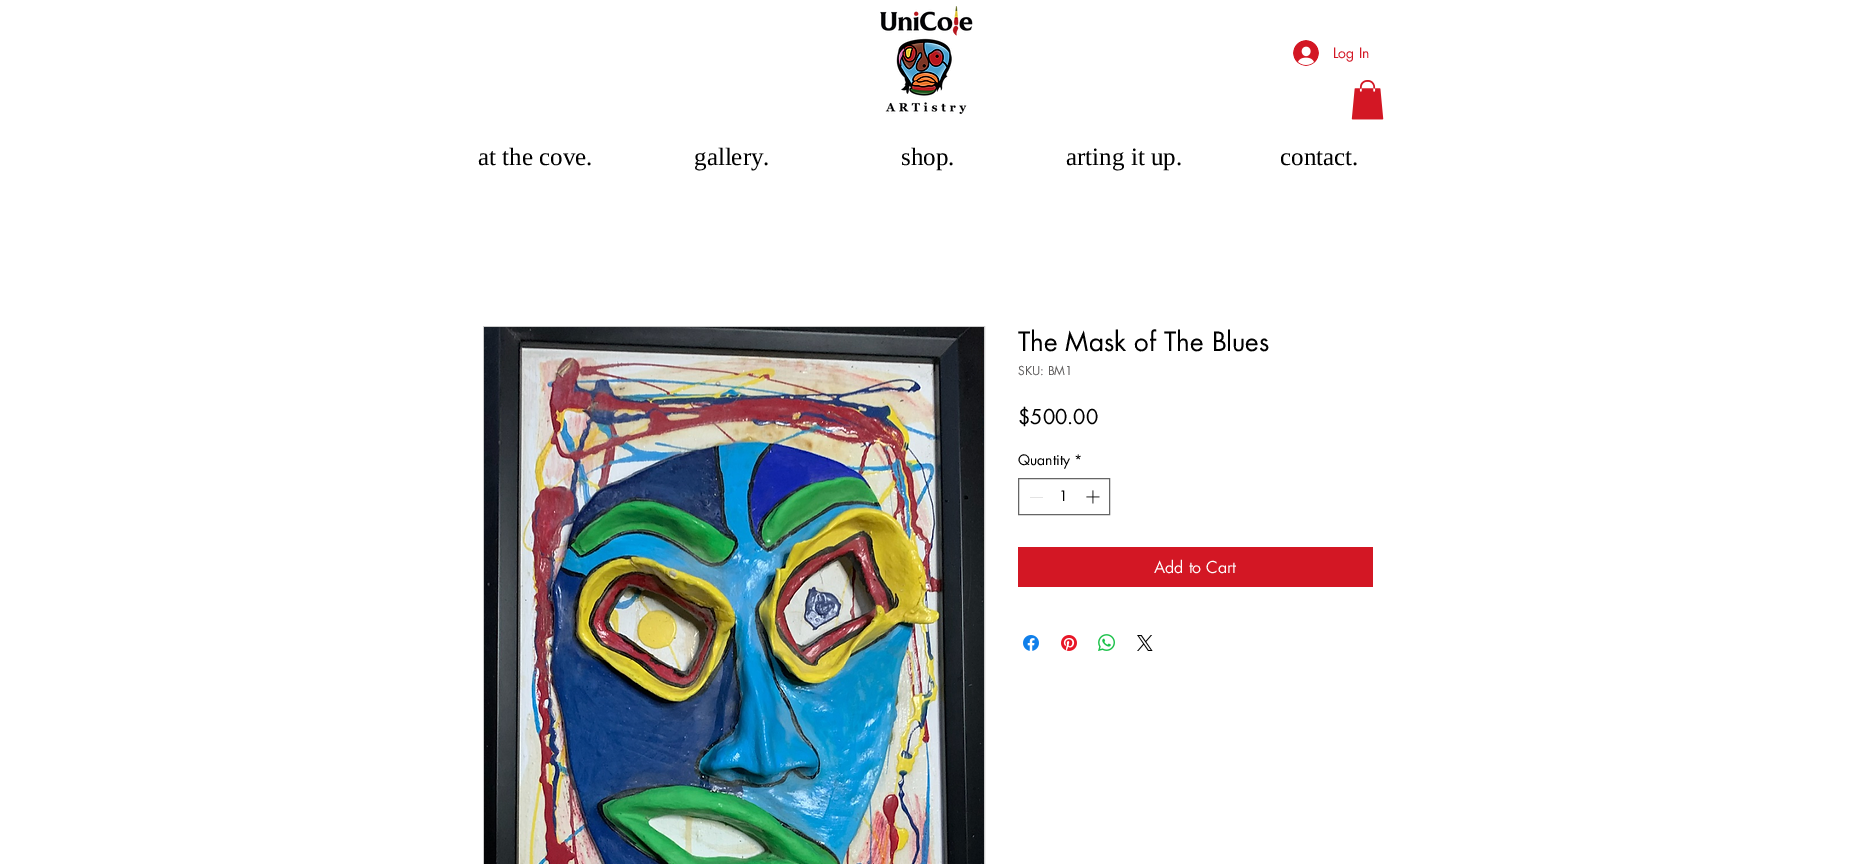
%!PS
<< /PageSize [1855 864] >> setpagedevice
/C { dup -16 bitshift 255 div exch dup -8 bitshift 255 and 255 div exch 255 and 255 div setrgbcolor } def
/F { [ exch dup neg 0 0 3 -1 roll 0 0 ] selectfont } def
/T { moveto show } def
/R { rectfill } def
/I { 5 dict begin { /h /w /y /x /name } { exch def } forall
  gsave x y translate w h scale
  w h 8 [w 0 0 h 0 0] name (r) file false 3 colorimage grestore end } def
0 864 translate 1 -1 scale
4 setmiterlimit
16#FFFFFF C
0 0 1855 864 R
(1.rgb) 880 6 93 108 I
(2.rgb) 1293 40 26 26 I
/futura-Regular 14 F
16#D31724 C
(Log In) 1333 58 T
(3.rgb) 1351 80 33 40 I
/LiberationSerif-Regular 25 F
16#000000 C
(at the cove.) 478 165 T
(gallery.) 694 165 T
(shop.) 901 165 T
(arting it up.) 1066 165 T
(contact.) 1280 165 T
16#CCCCCC C
483.5 326.5 501 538 rectstroke
(4.rgb) 484 327 500 537 I
/futura-Regular 26 F
16#000000 C
(The Mask of The Blues) 1018 351 T
/futura-Regular 12 F
16#605E5E C
(SKU: BM1) 1018 375 T
/futura-Regular 20 F
16#000000 C
($500.00) 1018 424 T
/futura-Regular 14 F
(Quantity *) 1018 465 T
16#666666 C
1018.5 478.5 91 36 rectstroke
16#E3E3E3 C
1030 497 13 1 R
16#000000 C
(1) 1059 501 T
(5.rgb) 1086 490 14 14 I
16#D31724 C
1018 547 355 40 R
/futura-Regular 16 F
16#FFFFFF C
(Add to Cart) 1154 573 T
(6.rgb) 1023 635 16 16 I
(7.rgb) 1061 635 16 16 I
(8.rgb) 1098 634 17 17 I
(9.rgb) 1137 635 16 16 I
showpage
